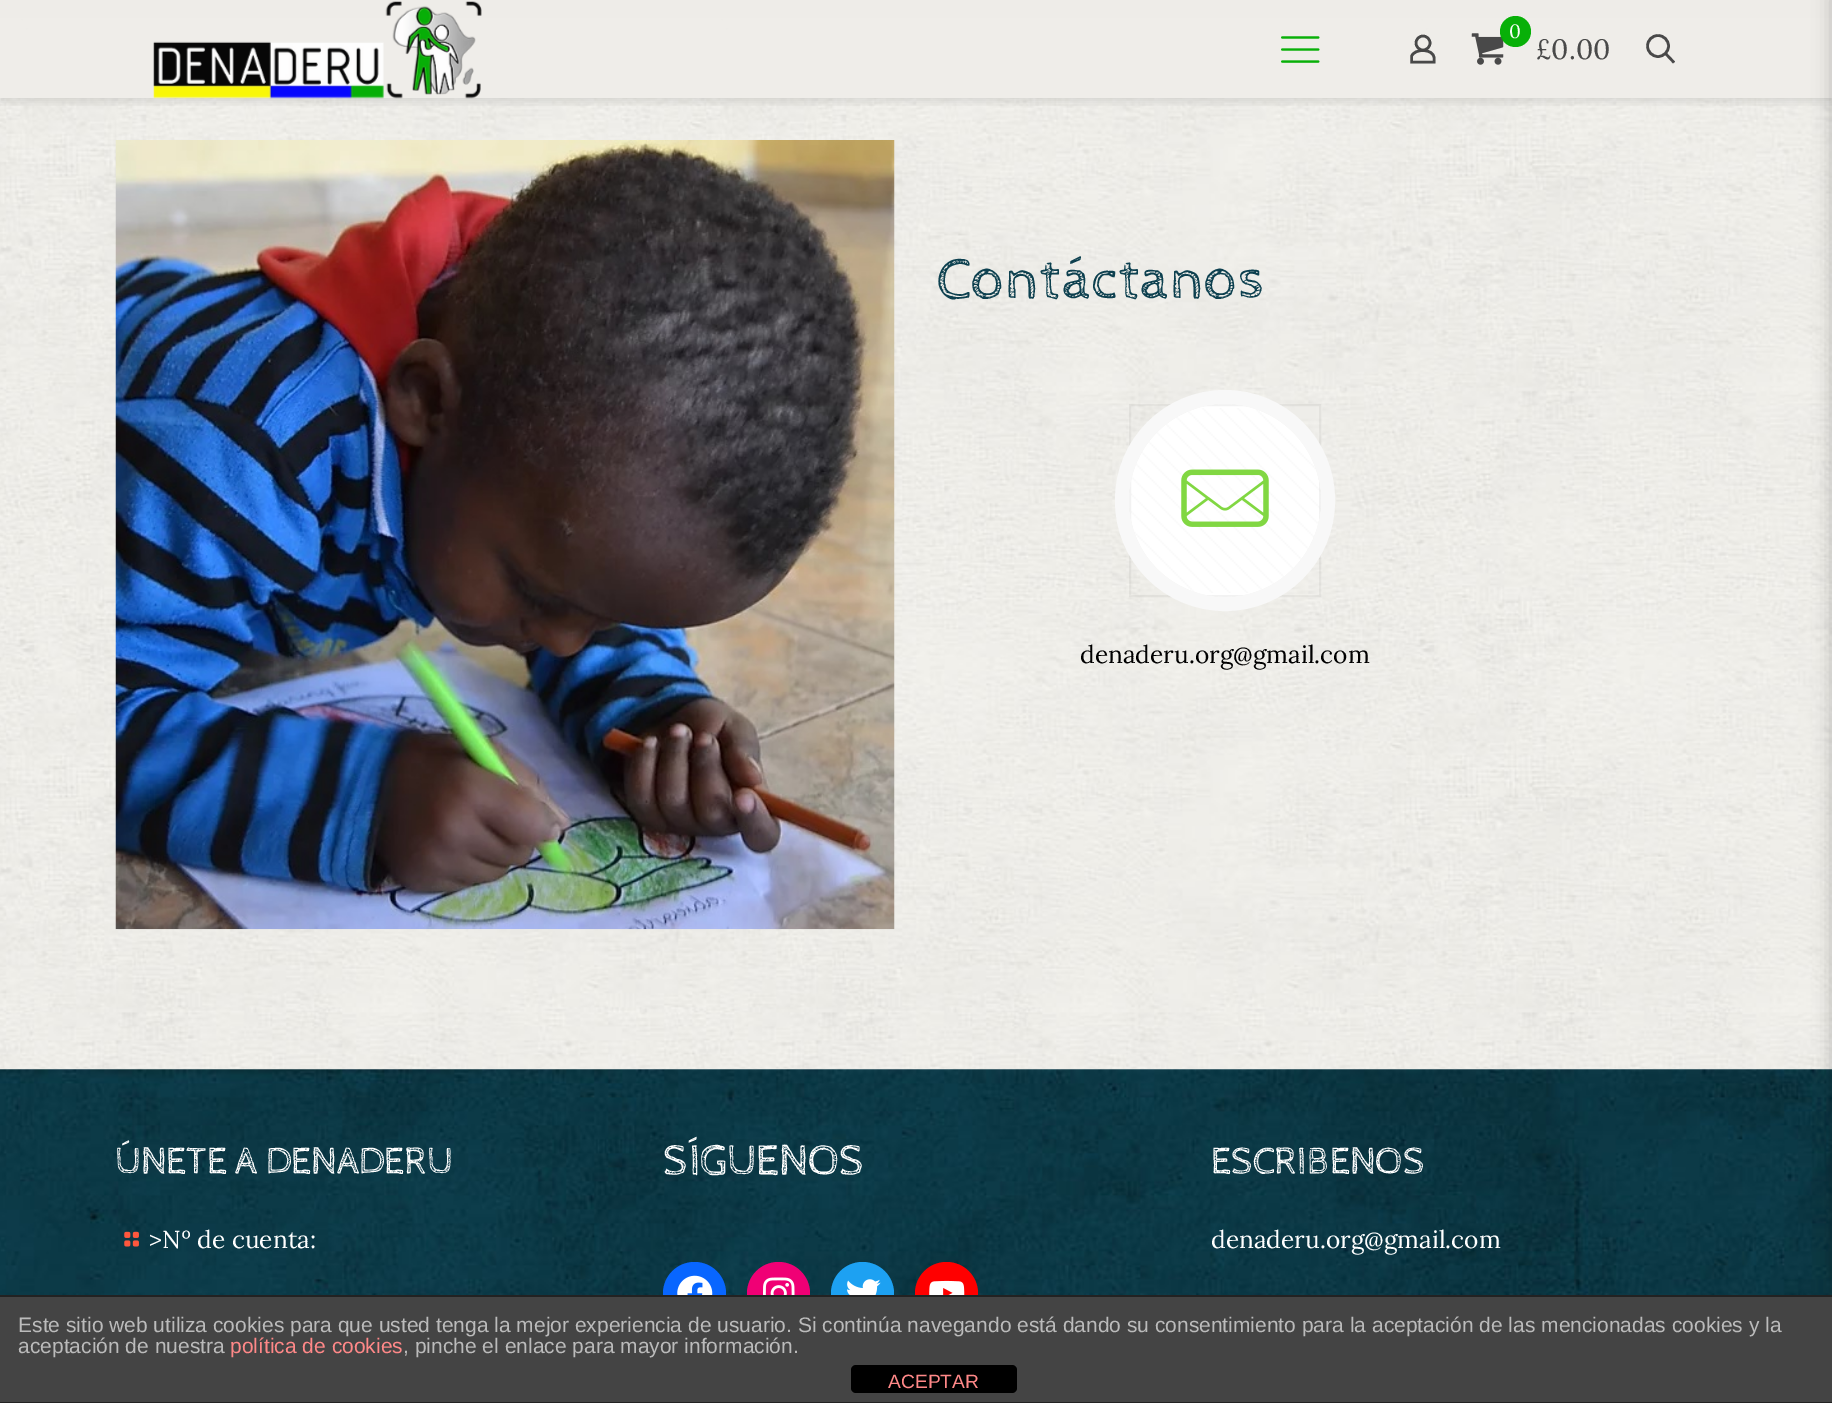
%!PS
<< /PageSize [1832 1403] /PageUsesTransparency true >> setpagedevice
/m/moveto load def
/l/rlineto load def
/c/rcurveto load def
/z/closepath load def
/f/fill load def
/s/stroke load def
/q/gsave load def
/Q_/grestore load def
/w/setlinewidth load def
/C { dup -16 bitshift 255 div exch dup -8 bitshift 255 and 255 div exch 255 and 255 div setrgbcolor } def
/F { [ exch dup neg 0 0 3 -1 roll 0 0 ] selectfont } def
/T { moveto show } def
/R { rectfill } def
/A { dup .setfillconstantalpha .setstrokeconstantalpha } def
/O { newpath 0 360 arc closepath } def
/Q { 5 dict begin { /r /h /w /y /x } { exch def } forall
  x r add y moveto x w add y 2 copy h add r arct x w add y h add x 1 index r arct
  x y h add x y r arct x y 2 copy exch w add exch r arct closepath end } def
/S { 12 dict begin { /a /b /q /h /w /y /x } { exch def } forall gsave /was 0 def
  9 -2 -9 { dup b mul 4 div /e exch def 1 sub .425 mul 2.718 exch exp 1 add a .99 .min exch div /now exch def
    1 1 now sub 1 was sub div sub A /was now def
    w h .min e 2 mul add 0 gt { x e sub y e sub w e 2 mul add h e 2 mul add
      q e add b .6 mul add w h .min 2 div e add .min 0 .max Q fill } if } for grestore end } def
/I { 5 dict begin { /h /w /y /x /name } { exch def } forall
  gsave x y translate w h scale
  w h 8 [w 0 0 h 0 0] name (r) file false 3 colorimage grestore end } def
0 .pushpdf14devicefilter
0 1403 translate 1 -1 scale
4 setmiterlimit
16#FFFFFF C
0 0 1832 1403 R
(1.rgb) 0 0 1832 1070 I
0.2 A
16#76695B C
0 0 1832 18 R
q
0 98 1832 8 rectclip
1 A
16#000000 C
0 4 1832 98 0 4.5 .1 S
Q_
0.97 A
16#EFEDE9 C
0 0 1832 98 R
1 A
(2.rgb) 153 1 329 98 I
(3.rgb) 1281 36 39 27 I
16#494949 C
2.6 w
1423 43 7 O s
0.97 A
16#444444 C
1434 58 m 0 4 l -22.5 0 l 0 -5.5 l 2.5 -8.5 22.5 -8 22.5 1.5 c z s
1 A
(4.rgb) 1471 33 33 32 I
0.97 A
16#01AE01 C
1515.5 31.5 15.5 O f
/Lora-Regular 19.25 F
1 A
16#F8FDF8 C
(0) 1509 38 T
/Lora-Regular 28 F
16#494949 C
(£0.00) 1536 59 T
1658 46 10.5 O s
0.97 A
16#444444 C
1665.5 53.5 m 8.5 9 l s
1 A
(5.rgb) 115 140 780 790 I
/CabinSketch-Regular 59.5 F
16#0D404F C
(Contáctanos) 937 298 T
16#FFFFFF C
1129 404 192 193 96 Q f
(6.rgb) 1131 408 190 185 I
0.05 A
16#000000 C
2 w
1130 405 190 191 rectstroke
1 A
16#F8F8F8 C
14 w
1122 397 206 207 103 Q s
(7.rgb) 1181 469 88 58 I
/Lora-Regular 24.5 F
16#000000 C
(denaderu.org@gmail.com) 1080 663 T
(8.rgb) 0 1069 1832 226 I
/CabinSketch-Regular 38.5 F
16#FFFFFF C
(ÚNETE A DENADERU) 115 1173 T
(9.rgb) 124 1231 15 16 I
/Lora-Regular 24.5 F
(>Nº de cuenta:) 149 1248 T
/CabinSketch-Regular 43.75 F
(SÍGUENOS) 663 1174 T
16#0866FF C
694.5 1293.5 31.5 O f
(10.rgb) 677 1275 36 20 I
16#F00075 C
778.5 1293.5 31.5 O f
(11.rgb) 763 1277 32 18 I
16#1DA1F2 C
862.5 1293.5 31.5 O f
(12.rgb) 847 1279 34 16 I
16#FF0000 C
946.5 1293.5 31.5 O f
(13.rgb) 929 1280 36 15 I
/CabinSketch-Regular 38.5 F
16#FFFFFF C
(ESCRIBENOS) 1211 1173 T
/Lora-Regular 24.5 F
(denaderu.org@gmail.com) 1211 1248 T
16#000000 C
1831 -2 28 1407 0 9 .2 S
16#444444 C
0 1297 1832 105 R
16#222222 C
0 1295 1832 2 R
0 1402 1832 1 R
/LiberationSans-Regular 21 F
16#BBBBBB C
(Este sitio web utiliza cookies para que usted tenga la mejor experiencia de usuario. Si continúa navegando está dando su consentimiento para la aceptación de las mencionadas cookies y la) 18 1332 T
(aceptación de nuestra) 18 1353 T
16#FF8888 C
(política de cookies) 230 1353 T
16#BBBBBB C
(, pinche el enlace para mayor información.) 403 1353 T
16#000000 C
851 1365 166 28 5 Q f
/LiberationSans-Regular 19.25 F
16#FF8888 C
(ACEPTAR) 888 1388 T
.poppdf14devicefilter showpage
